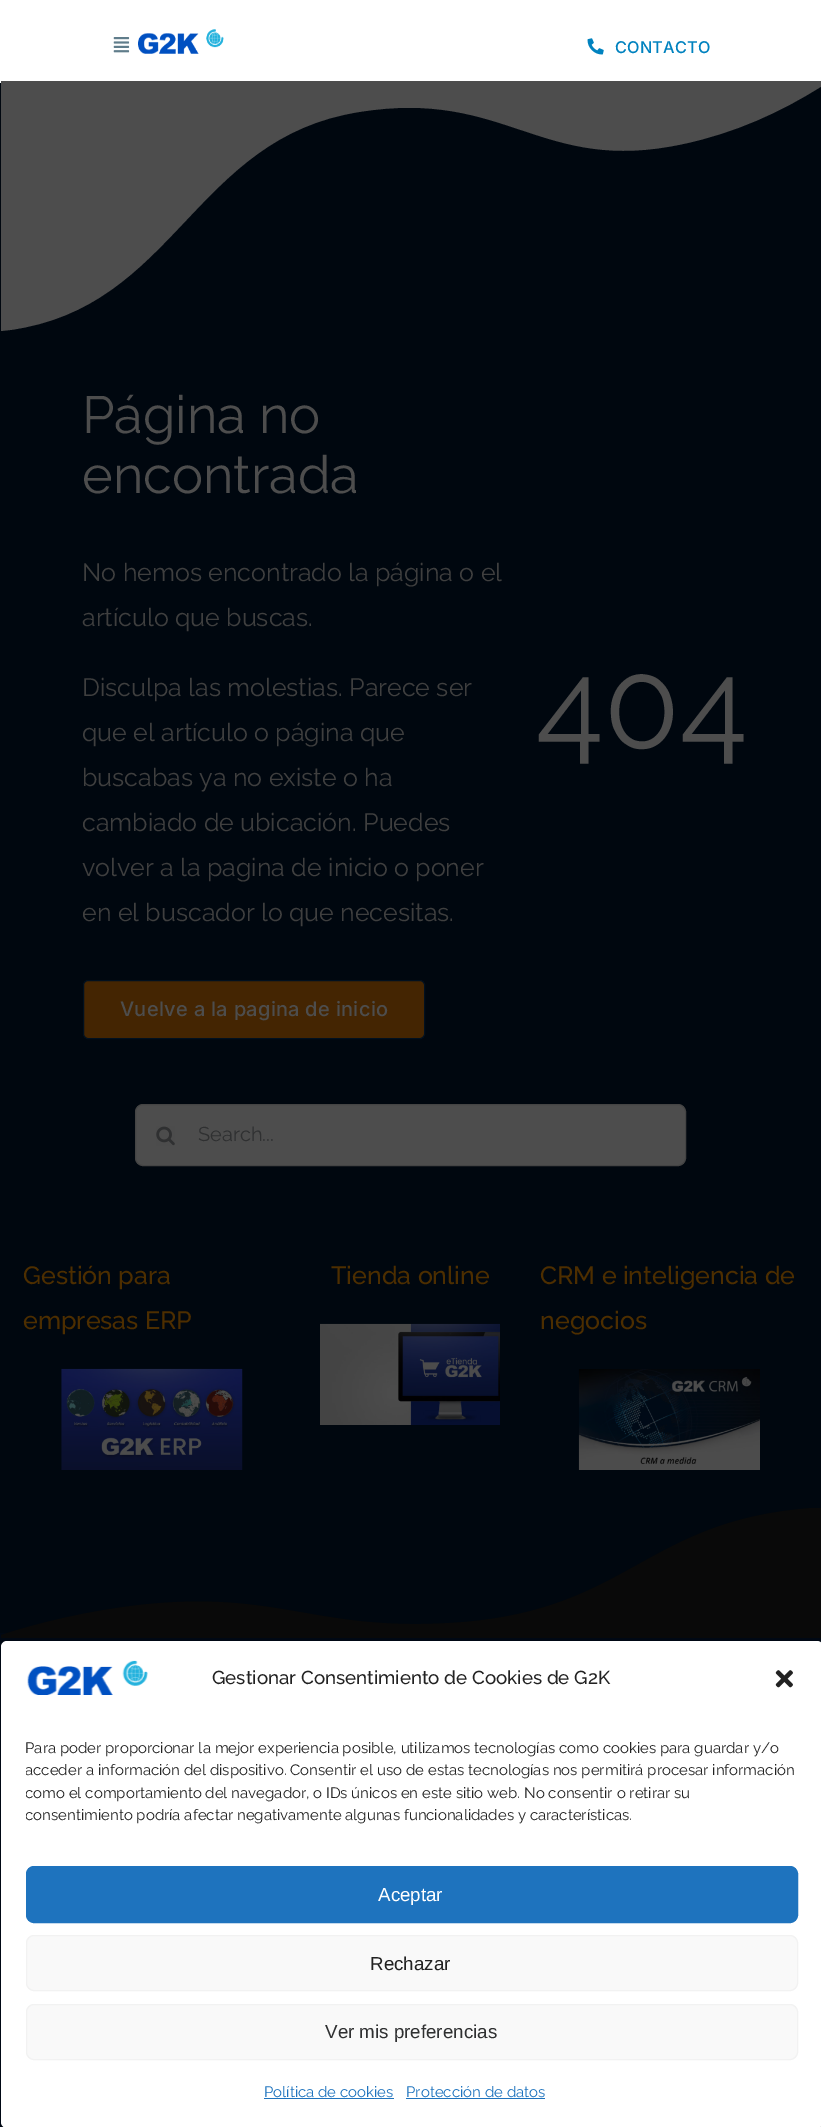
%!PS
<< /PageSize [821 2127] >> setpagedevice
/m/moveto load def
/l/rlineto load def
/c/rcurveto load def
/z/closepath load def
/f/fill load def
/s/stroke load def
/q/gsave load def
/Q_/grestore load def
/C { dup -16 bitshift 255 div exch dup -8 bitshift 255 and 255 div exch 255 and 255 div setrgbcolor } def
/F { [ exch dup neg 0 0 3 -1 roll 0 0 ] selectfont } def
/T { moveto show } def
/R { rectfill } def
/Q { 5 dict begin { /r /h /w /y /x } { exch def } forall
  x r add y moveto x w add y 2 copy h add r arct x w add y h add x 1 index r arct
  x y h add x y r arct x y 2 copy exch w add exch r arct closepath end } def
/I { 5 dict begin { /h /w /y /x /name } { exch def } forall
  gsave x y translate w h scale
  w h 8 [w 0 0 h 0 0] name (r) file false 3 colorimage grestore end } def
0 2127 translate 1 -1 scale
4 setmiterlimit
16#00070F C
0 0 821 2127 R
16#FFFFFF C
0 0 821 83 R
(1.rgb) 113 37 17 16 I
(2.rgb) 138 29 86 25 I
(3.rgb) 587 38 17 17 I
/Inter-Medium 16.25 F
16#0082BF C
615 53 m .25 0 (CONTACTO) ashow
16#4D4D4D C
1 331 m 9 -1 l 166 -23 183 -192 349 -218 c 148 -24 181 63 324 32 c 52 -11 98 -32 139 -58 c 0 -5 l -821 0 l z f
/Raleway-Regular 52.25 F
(Página no) 82 433 T
(encontrada) 82 493 T
/Raleway-Regular 25 F
16#3F3F3F C
(No hemos encontrado la página o el) 82 581 T
(artículo que buscas.) 82 626 T
(Disculpa las molestias. Parece ser) 82 696 T
(que el artículo o página que) 82 741 T
(buscabas ya no existe o ha) 82 786 T
(cambiado de ubicación. Puedes) 82 831 T
(volver a la pagina de inicio o poner) 82 876 T
(en el buscador lo que necesitas.) 82 921 T
16#442502 C
83.5 980.5 341 58 4.5 Q q f Q_
16#01101F C
s
/Inter-Medium 20 F
16#4D4D4D C
120 1016 m .3 0 (Vuelve a la pagina de inicio) ashow
/Raleway-Regular 124 F
(404) 536 748 T
135.5 1104.5 550 61 7.5 Q q f Q_
16#444444 C
s
(4.rgb) 156 1126 19 20 I
/Raleway-Regular 20 F
16#2F3031 C
(Search...) 198 1141 T
/Raleway-Medium 25 F
16#4D2E00 C
(Gestión para) 23 1284 T
(empresas ERP) 23 1329 T
(5.rgb) 61 1368 182 102 I
(Tienda online) 331 1284 T
(6.rgb) 320 1323 180 102 I
(CRM e inteligencia de) 540 1284 T
(negocios) 540 1329 T
(7.rgb) 578 1369 182 101 I
16#000814 C
0 1633 821 494 R
16#090909 C
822 1508 m -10 0 l -165 12 -182 100 -348 114 c -148 12 -182 -33 -325 -17 c -51 6 -98 17 -138 30 c 0 3 l 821 0 l z f
16#FFFFFF C
1 1641 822 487 6 Q f
(8.rgb) 27 1660 121 35 I
/Raleway-Medium 18.75 F
16#222222 C
(Gestionar Consentimiento de Cookies de G2K) 212 1684 T
(9.rgb) 775 1670 18 18 I
/Raleway-Regular 15 F
(Para poder proporcionar la mejor experiencia posible, utilizamos tecnologías como cookies para guardar y/o) 25 1753 T
q
26 1721 772 120 rectclip
(acceder a información del dispositivo. Consentir el uso de estas tecnologías nos permitirá procesar información) 25 1775 T
(como el comportamiento del navegador, o IDs únicos en este sitio web. No consentir o retirar su) 25 1798 T
(consentimiento podría afectar negativamente algunas funcionalidades y características.) 25 1820 T
Q_
16#1E73BE C
26.5 1866.5 771 56 7.5 Q q f Q_
s
/LiberationSans-Regular 18.75 F
16#FFFFFF C
(Aceptar) 378 1901 T
16#F9F9F9 C
26.5 1935.5 771 55 7.5 Q q f Q_
16#F2F2F2 C
s
16#222222 C
(Rechazar) 370 1970 T
16#F9F9F9 C
26.5 2004.5 771 55 7.5 Q q f Q_
16#F2F2F2 C
s
16#2F3031 C
(Ver mis preferencias) 325 2038 T
/Raleway-Regular 15 F
16#1E73BE C
(Política de cookies) 264 2097 T
264 2098 130 1 R
(Protección de datos) 406 2097 T
406 2098 139 1 R
showpage
